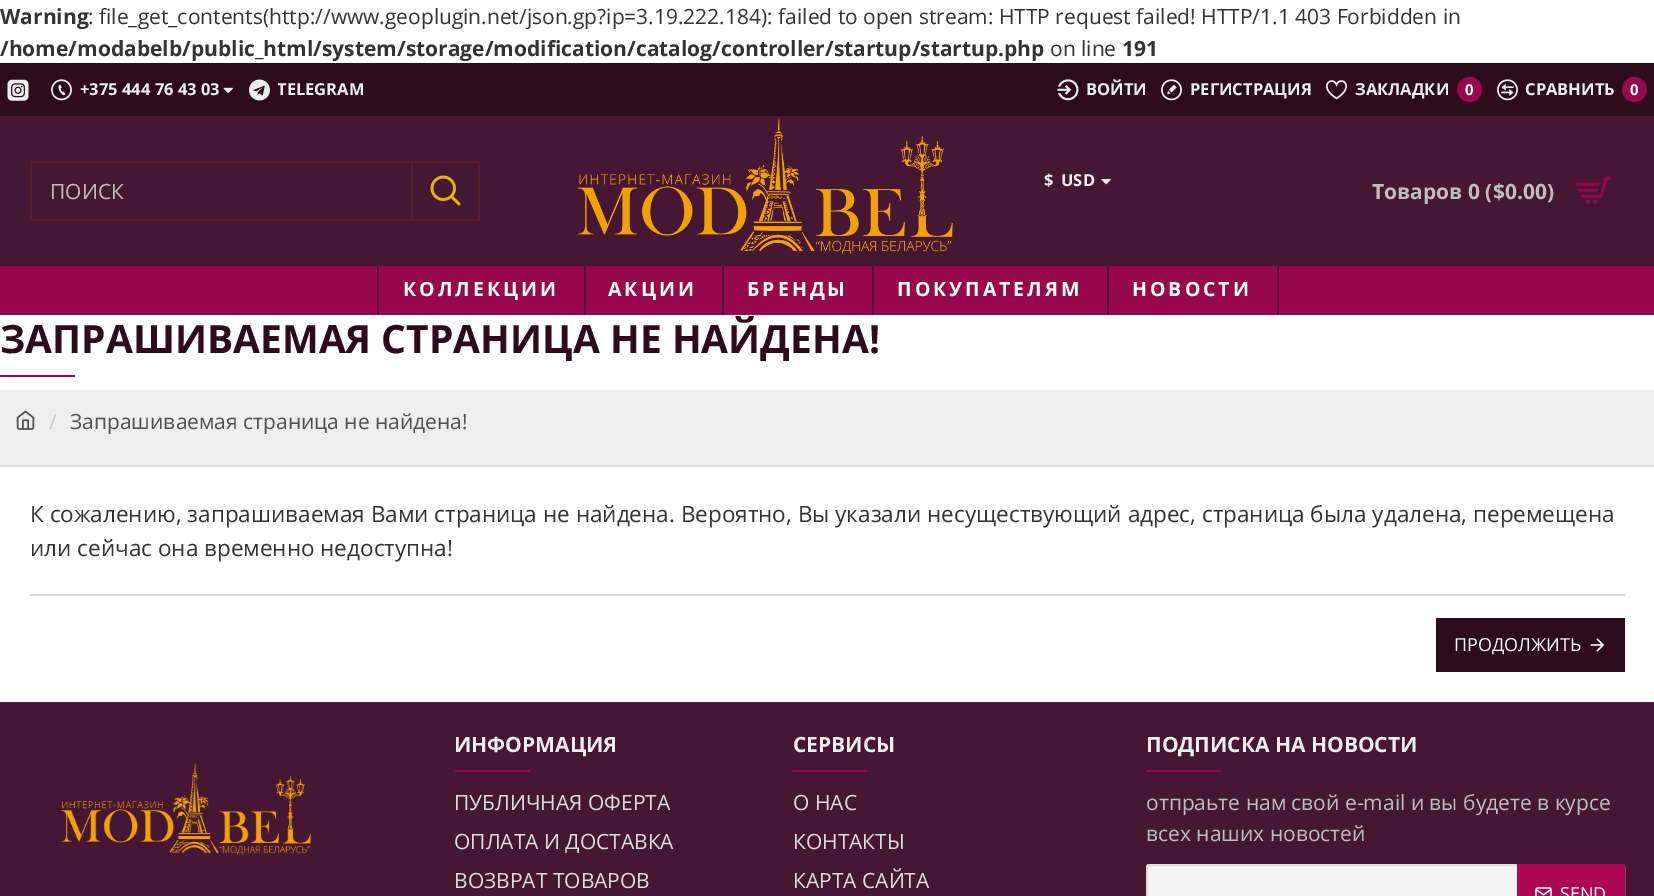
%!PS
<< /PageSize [1654 896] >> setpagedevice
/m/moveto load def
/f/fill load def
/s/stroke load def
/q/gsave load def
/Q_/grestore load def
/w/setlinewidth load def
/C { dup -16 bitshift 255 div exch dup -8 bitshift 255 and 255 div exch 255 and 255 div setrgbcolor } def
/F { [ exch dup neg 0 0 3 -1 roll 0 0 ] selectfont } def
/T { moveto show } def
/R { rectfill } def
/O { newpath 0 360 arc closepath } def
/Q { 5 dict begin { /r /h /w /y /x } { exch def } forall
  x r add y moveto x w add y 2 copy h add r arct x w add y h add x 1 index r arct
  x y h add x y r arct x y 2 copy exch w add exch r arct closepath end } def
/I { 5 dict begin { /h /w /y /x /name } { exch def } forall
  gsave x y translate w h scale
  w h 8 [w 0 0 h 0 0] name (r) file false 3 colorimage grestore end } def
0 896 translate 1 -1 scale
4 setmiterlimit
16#FFFFFF C
0 0 1654 896 R
/OpenSans-Bold 21 F
16#333333 C
(Warning) 0 24 T
/OpenSans-Regular 21 F
(: file_get_contents\(http://www.geoplugin.net/json.gp?ip=3.19.222.184\): failed to open stream: HTTP request failed! HTTP/1.1 403 Forbidden in) 88 24 T
/OpenSans-Bold 21 F
(/home/modabelb/public_html/system/storage/modification/catalog/controller/startup/startup.php) 0 56 T
/OpenSans-Regular 21 F
(on line) 1050 56 T
/OpenSans-Bold 21 F
(191) 1122 56 T
16#461733 C
0 116 1654 150 R
16#2C0C1A C
0 63 1654 53 R
(1.rgb) 7 79 22 22 I
(2.rgb) 51 79 21 22 I
/OpenSans-Bold 16.5 F
16#EEEEEE C
(+375 444 76 43 03) 80 95 T
(3.rgb) 223 87 10 7 I
(4.rgb) 249 79 21 22 I
q
278 77 87 25 rectclip
(TELEGRAM) 277 95 T
Q_
(5.rgb) 1057 79 22 22 I
(ВОЙТИ) 1086 95 T
(6.rgb) 1161 79 21 22 I
(РЕГИСТРАЦИЯ) 1190 95 T
(7.rgb) 1326 80 21 20 I
(ЗАКЛАДКИ) 1355 95 T
16#96084B C
1469.5 89.5 12.5 O f
/OpenSans-Bold 15 F
16#FFFFFF C
(0) 1465 95 T
(8.rgb) 1497 79 21 22 I
/OpenSans-Bold 16.5 F
16#EEEEEE C
(СРАВНИТЬ) 1525 95 T
16#96084B C
1634.5 89.5 12.5 O f
/OpenSans-Bold 15 F
16#FFFFFF C
(0) 1630 95 T
(9.rgb) 577 117 376 137 I
/OpenSans-Bold 16.5 F
16#EEEEEE C
($) 1044 186 T
(USD) 1061 186 T
(10.rgb) 1101 179 10 6 I
16#551D2D C
2 w
31 162 448 58 rectstroke
/OpenSans-Regular 21 F
16#BEBEBE C
(ПОИСК) 50 199 T
16#551D2D C
411 162 2 57 R
(11.rgb) 430 175 31 31 I
/OpenSans-Bold 21 F
16#BEBEBE C
(Товаров 0 \($0.00\)) 1372 199 T
(12.rgb) 1575 176 37 28 I
16#96084B C
0 266 1654 49 R
16#630732 C
1277 266 2 49 R
377 266 2 49 R
/OpenSans-Bold 19.5 F
16#FFFFFF C
403 296 m 3 0 (КОЛЛЕКЦИИ) ashow
16#461733 C
584 266 2 49 R
16#FFFFFF C
608 296 m 3 0 (АКЦИИ) ashow
16#461733 C
722 266 2 49 R
16#FFFFFF C
747 296 m 3 0 (БРЕНДЫ) ashow
16#461733 C
872 266 2 49 R
16#FFFFFF C
897 296 m 3 0 (ПОКУПАТЕЛЯМ) ashow
16#461733 C
1107 266 2 49 R
16#FFFFFF C
1132 296 m 3 0 (НОВОСТИ) ashow
/OpenSans-Bold 39 F
16#2C0C1A C
(ЗАПРАШИВАЕМАЯ СТРАНИЦА НЕ НАЙДЕНА!) 0 353 T
16#96084B C
0 375 75 2 R
16#EEEEEE C
0 390 1654 75 R
16#DDDDDD C
0 465 1654 2 R
(13.rgb) 16 410 19 20 I
/OpenSans-Regular 21 F
16#CCCCCC C
(/) 49 429 T
16#505050 C
(Запрашиваемая страница не найдена!) 70 429 T
/OpenSans-Regular 22.5 F
16#333333 C
(К сожалению, запрашиваемая Вами страница не найдена. Вероятно, Вы указали несуществующий адрес, страница была удалена, перемещена) 30 522 T
(или сейчас она временно недоступна!) 30 556 T
16#DDDDDD C
30 594 1595 2 R
16#2C0C1A C
1436 618 189 54 R
/OpenSans-Regular 18 F
16#FFFFFF C
(ПРОДОЛЖИТЬ) 1454 651 T
(14.rgb) 1590 638 15 14 I
16#461733 C
0 702 1654 194 R
(15.rgb) 60 763 252 92 I
/OpenSans-Bold 21 F
16#EEEEEE C
(ИНФОРМАЦИЯ) 454 752 T
16#96084B C
455 770 75 2 R
/OpenSans-Regular 21 F
16#DDDDDD C
(ПУБЛИЧНАЯ ОФЕРТА) 454 810 T
(ОПЛАТА И ДОСТАВКА) 454 849 T
(ВОЗВРАТ ТОВАРОВ) 454 888 T
/OpenSans-Bold 21 F
16#EEEEEE C
(СЕРВИСЫ) 793 752 T
16#96084B C
792 770 75 2 R
/OpenSans-Regular 21 F
16#DDDDDD C
(О НАС) 793 810 T
(КОНТАКТЫ) 793 849 T
(КАРТА САЙТА) 793 888 T
/OpenSans-Bold 21 F
16#EEEEEE C
(ПОДПИСКА НА НОВОСТИ) 1146 752 T
16#96084B C
1146 770 75 2 R
/OpenSans-Regular 21 F
16#BEBEBE C
(отпраьте нам свой e-mail и вы будете в курсе) 1146 810 T
(всех наших новостей) 1146 841 T
16#F5F5F5 C
1147 865 477 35 2 Q q f Q_
16#DDDDDD C
s
16#AC0852 C
1517 864 108 32 R
(16.rgb) 1535 887 17 9 I
/OpenSans-Regular 18 F
16#FFFFFF C
(SEND) 1560 900 T
showpage
